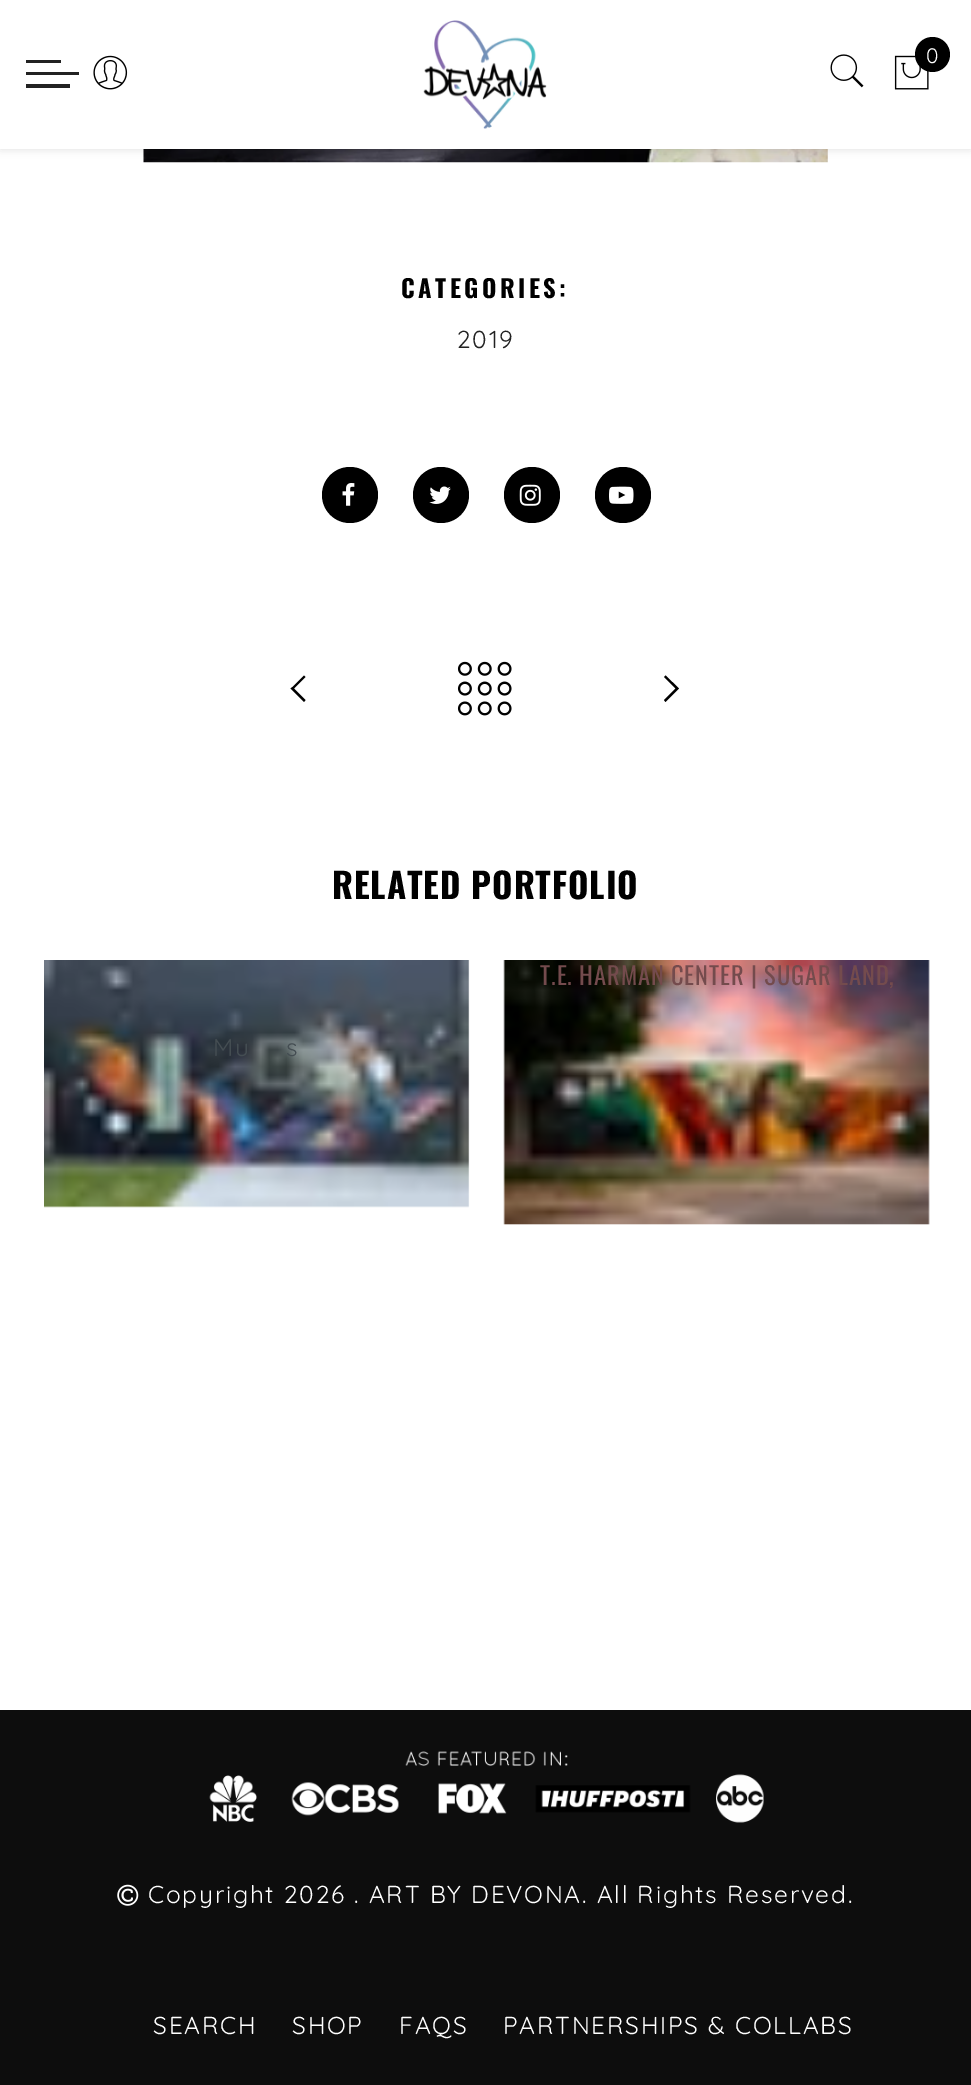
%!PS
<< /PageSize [971 2085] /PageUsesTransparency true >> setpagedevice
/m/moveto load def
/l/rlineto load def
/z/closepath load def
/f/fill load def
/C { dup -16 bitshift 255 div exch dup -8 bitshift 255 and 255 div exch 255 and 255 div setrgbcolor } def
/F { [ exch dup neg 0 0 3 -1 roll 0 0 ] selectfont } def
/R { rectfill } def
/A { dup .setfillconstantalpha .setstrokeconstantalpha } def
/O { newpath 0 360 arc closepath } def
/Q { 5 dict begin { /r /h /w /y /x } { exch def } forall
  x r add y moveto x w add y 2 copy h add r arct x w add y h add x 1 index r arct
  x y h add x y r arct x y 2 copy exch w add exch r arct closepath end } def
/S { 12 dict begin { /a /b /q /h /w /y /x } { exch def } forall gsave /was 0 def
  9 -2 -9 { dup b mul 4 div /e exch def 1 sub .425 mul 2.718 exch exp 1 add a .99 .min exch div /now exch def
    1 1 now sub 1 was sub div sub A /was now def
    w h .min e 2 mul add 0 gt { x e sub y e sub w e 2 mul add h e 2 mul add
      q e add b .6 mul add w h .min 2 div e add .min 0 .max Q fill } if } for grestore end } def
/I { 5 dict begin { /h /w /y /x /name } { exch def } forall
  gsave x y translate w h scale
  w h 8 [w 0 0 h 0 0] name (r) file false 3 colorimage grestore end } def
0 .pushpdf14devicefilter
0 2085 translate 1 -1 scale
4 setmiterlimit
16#FFFFFF C
0 0 971 2085 R
(5.rgb) 143 149 685 14 I
16#000000 C
0 0 971 149 0 4.5 .12 S
16#FFFFFF C
0 0 971 149 R
16#222222 C
26 60 35 3 R
26 72 53 3 R
26 84 44 4 R
(1.rgb) 93 55 35 35 I
(2.rgb) 423 20 124 109 I
(3.rgb) 830 54 34 34 I
(4.rgb) 894 55 35 35 I
16#000000 C
932.5 54.5 17.5 O f
/Quicksand-Regular 21 F
16#FFFFFF C
926 63 m 1.75 0 (0) ashow
/Oswald-Bold 24.5 F
16#000000 C
401 298 m 3.5 0 (CATEGORIES:) ashow
/Quicksand-Regular 24.5 F
16#222222 C
457 348 m 1.75 0 (2019) ashow
16#000000 C
350 495 28 O f
(6.rgb) 342 483 13 23 I
441 495 28 O f
(7.rgb) 429 486 22 18 I
532 495 28 O f
(8.rgb) 519 484 22 22 I
623 495 28 O f
(9.rgb) 609 486 25 18 I
292.5 687 m -2 1.5 l 13.5 13.5 l 1.5 -2 l -11.5 -11.5 l 11.5 -11.5 l -1.5 -1.5 l z f
(10.rgb) 457 661 55 55 I
677 690.5 m 2 -2 l -13.5 -13 l -1.5 1.5 l 11.5 11.5 l -11.5 11.5 l 1.5 2 l z f
/Oswald-Bold 35 F
332 899 m .9 0 (RELATED PORTFOLIO) ashow
(11.rgb) 503 960 427 265 I
/Oswald-Regular 24.5 F
16#744B4D C
540 985 m .9 0 (T.E. HARMAN CENTER | SUGAR LAND,) ashow
(12.rgb) 44 960 426 248 I
/Quicksand-Regular 24.5 F
16#444D52 C
213 1056 m 1.75 0 (Mu) ashow
286 1056 m 1.75 0 (s) ashow
16#0D0D0D C
0 1710 971 375 R
(13.rgb) 209 1751 555 72 I
(14.rgb) 117 1884 22 22 I
16#FFFFFF C
148 1903 m 1.75 0 (Copyright 2026 . ART BY DEVONA. All Rights Reserved.) ashow
153 2034 m 1.75 0 (SEARCH) ashow
292 2034 m 1.75 0 (SHOP) ashow
399 2034 m 1.75 0 (FAQS) ashow
503 2034 m 1.75 0 (PARTNERSHIPS & COLLABS) ashow
.poppdf14devicefilter showpage
